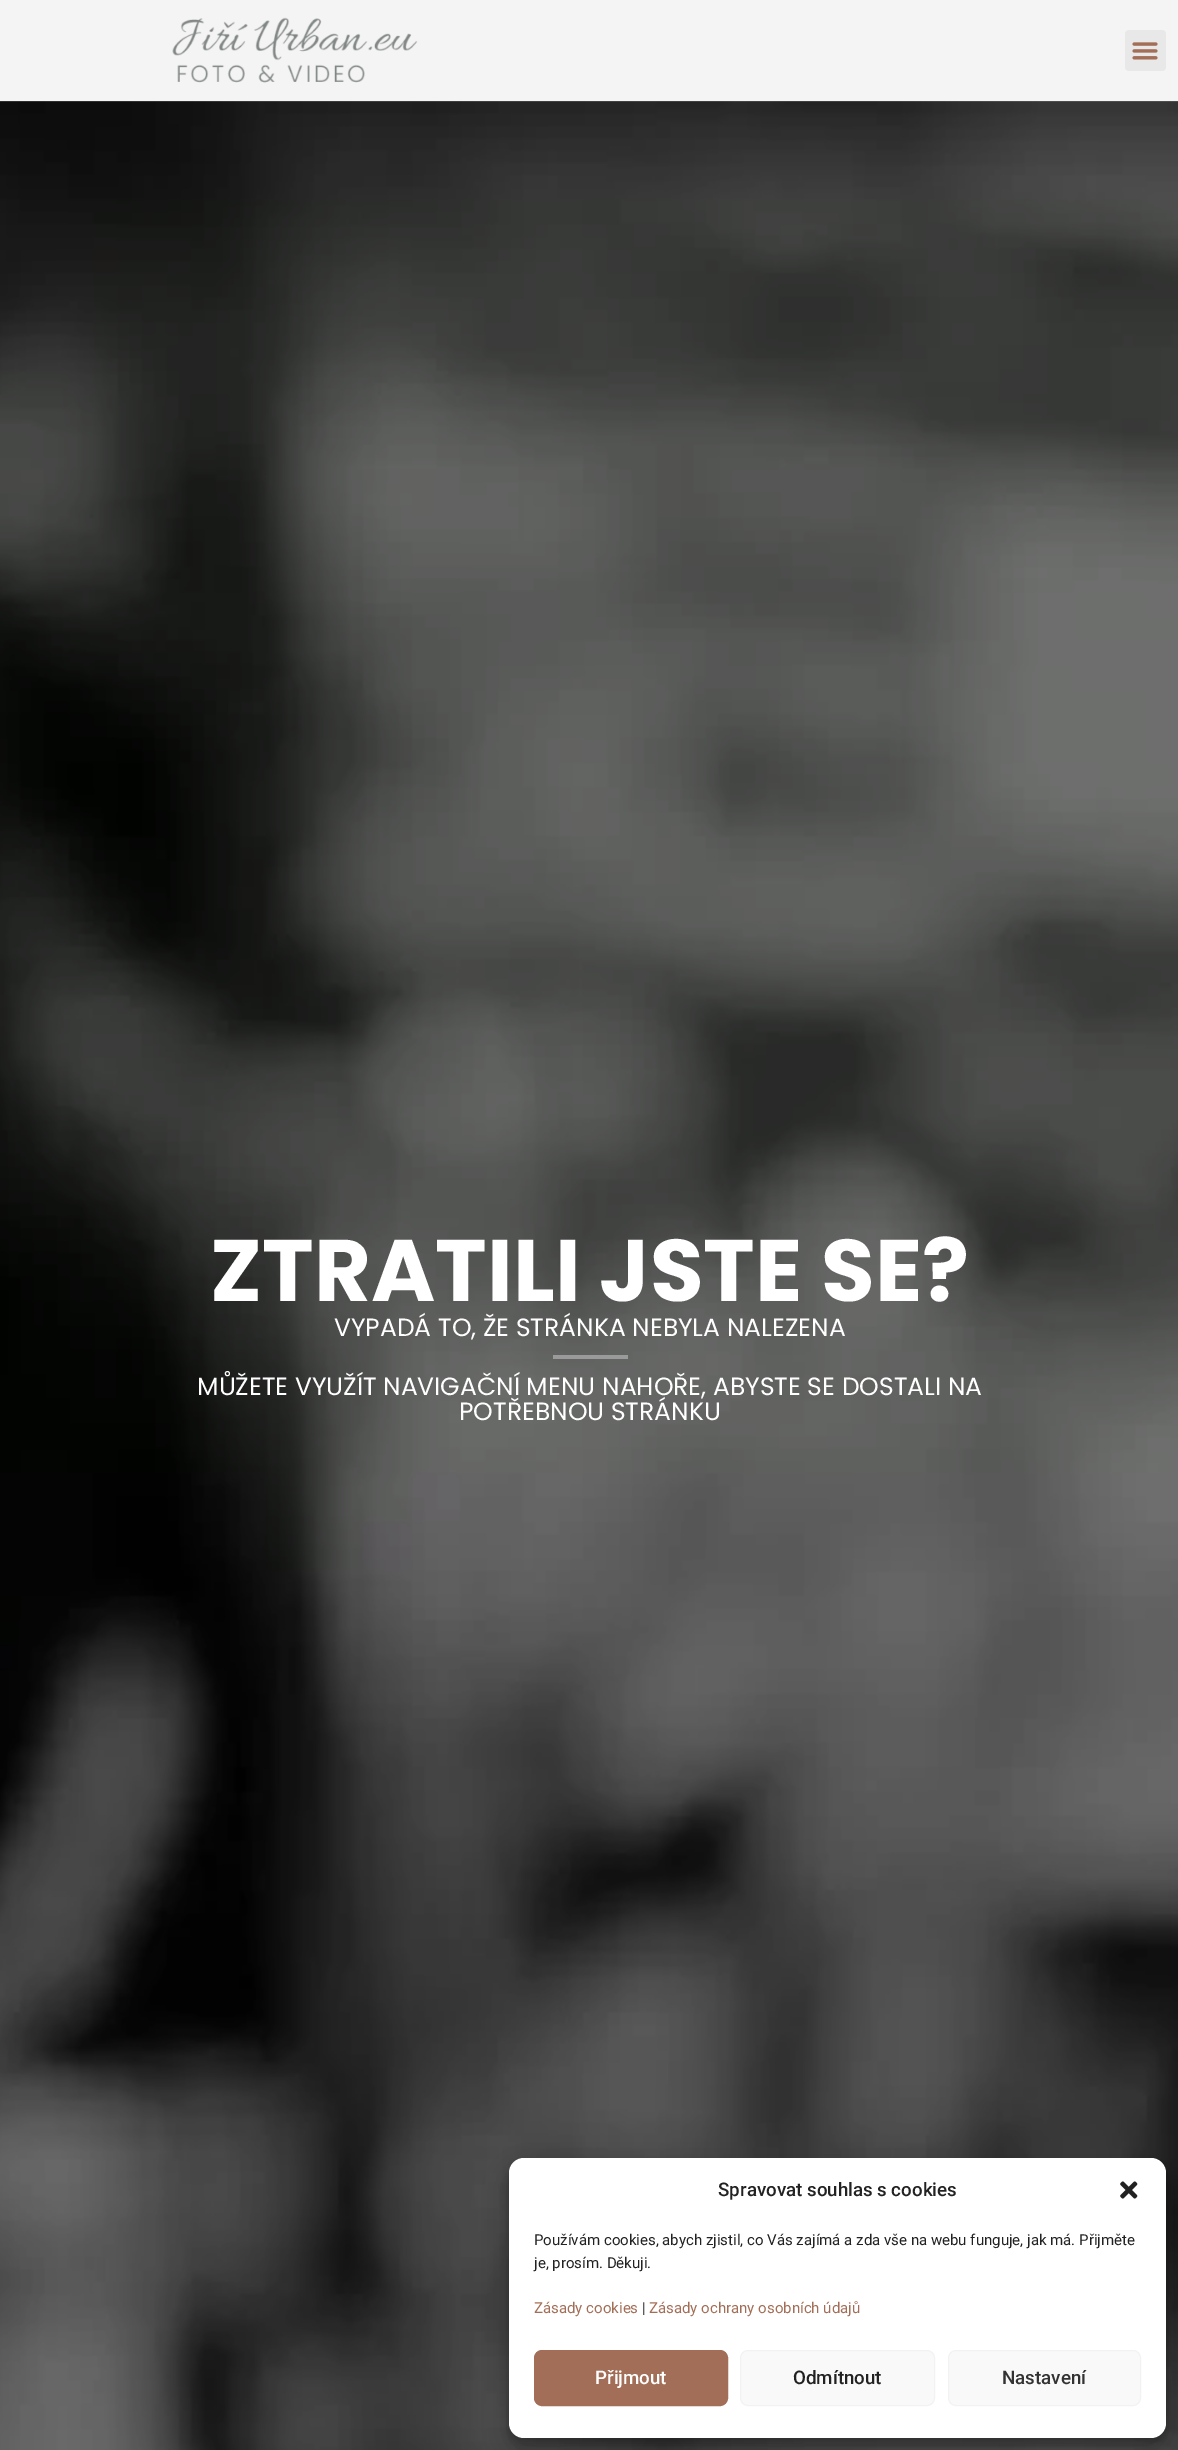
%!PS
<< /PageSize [1178 2450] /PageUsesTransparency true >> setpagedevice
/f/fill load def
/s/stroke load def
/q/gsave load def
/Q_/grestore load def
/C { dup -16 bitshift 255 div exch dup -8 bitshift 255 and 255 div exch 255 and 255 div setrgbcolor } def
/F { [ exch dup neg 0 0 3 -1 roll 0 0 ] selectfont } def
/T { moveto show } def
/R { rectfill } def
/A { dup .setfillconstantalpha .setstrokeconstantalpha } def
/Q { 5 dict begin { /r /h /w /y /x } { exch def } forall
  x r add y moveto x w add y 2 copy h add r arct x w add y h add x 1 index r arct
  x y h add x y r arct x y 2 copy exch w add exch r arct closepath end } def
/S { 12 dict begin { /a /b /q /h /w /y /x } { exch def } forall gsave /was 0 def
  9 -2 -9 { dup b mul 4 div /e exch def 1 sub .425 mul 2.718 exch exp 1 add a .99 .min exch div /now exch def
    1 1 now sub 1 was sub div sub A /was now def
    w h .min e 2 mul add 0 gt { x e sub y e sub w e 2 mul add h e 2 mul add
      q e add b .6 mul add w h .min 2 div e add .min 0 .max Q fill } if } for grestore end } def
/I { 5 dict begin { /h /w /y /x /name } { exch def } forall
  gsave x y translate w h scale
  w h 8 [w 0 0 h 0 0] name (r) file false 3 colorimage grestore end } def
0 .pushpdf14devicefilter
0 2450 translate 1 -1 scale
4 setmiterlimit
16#FFFFFF C
0 0 1178 2450 R
16#F4F4F4 C
0 0 1178 101 R
(1.rgb) 172 17 246 66 I
16#E8E8E8 C
1125 30 41 41 4 Q f
(2.rgb) 1132 42 26 18 I
(3.rgb) 0 101 1178 2349 I
/Poppins-Bold 87.5 F
16#FFFFFF C
(ZTRATILI JSTE SE?) 210 1301 T
/Poppins-Regular 25 F
(VYPADÁ TO, ŽE STRÁNKA NEBYLA NALEZENA) 334 1336 T
16#999A99 C
553 1355 75 4 R
16#FFFFFF C
(MŮŽETE VYUŽÍT NAVIGAČNÍ MENU NAHOŘE, ABYSTE SE DOSTALI NA) 197 1395 T
(POTŘEBNOU STRÁNKU) 459 1420 T
16#000000 C
509 2165 657 280 15 4 .23 S
509 2170 657 280 15 12.5 .19 S
16#FFFFFF C
509 2158 657 280 15 Q f
/Roboto-Medium 18.75 F
16#222222 C
(Spravovat souhlas s cookies) 718 2196 T
(4.rgb) 1120 2181 18 18 I
/Roboto-Regular 15 F
(Používám cookies, abych zjistil, co Vás zajímá a zda vše na webu funguje, jak má. Přijměte) 534 2245 T
(je, prosím. Děkuji.) 534 2268 T
16#A36E57 C
(Zásady cookies) 534 2313 T
16#222222 C
(|) 642 2313 T
16#A36E57 C
(Zásady ochrany osobních údajů) 649 2313 T
534.5 2350.5 193 55 7.5 Q q f Q_
s
/Roboto-Medium 18.75 F
16#FFFFFF C
(Přijmout) 595 2384 T
16#F9F9F9 C
740.5 2350.5 194 55 7.5 Q q f Q_
16#F2F2F2 C
s
16#222222 C
(Odmítnout) 793 2384 T
16#F9F9F9 C
948.5 2350.5 192 55 7.5 Q q f Q_
16#F2F2F2 C
s
16#333333 C
(Nastavení) 1002 2384 T
.poppdf14devicefilter showpage
